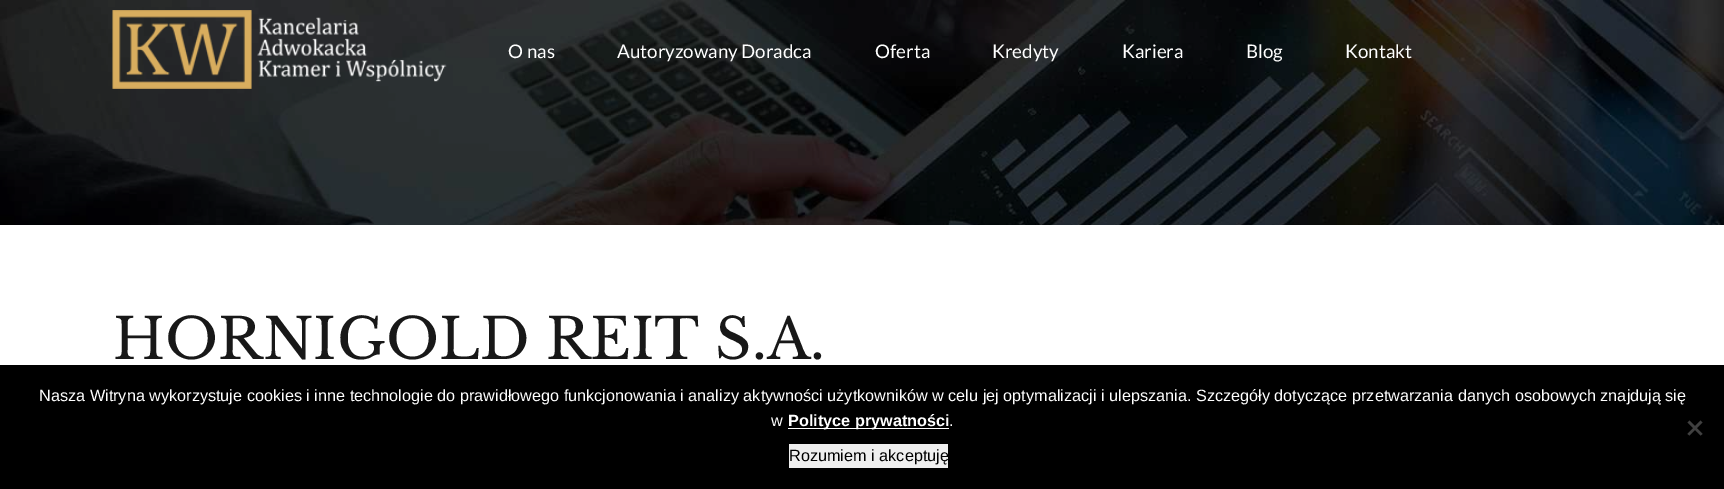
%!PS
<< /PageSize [1724 489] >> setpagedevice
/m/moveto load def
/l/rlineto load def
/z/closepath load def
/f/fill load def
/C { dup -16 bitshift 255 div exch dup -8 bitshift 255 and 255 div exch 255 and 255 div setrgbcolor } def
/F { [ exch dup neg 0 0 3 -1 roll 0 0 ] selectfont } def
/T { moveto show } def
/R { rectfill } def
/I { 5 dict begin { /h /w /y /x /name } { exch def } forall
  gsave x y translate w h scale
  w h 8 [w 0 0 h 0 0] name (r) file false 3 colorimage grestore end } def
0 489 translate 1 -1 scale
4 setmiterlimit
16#FFFFFF C
0 0 1724 489 R
(2.rgb) 0 0 1724 225 I
(1.rgb) 112 10 335 79 I
/Lato-Regular 18.75 F
(O nas) 508 58 T
(Autoryzowany Doradca) 617 58 T
(Oferta) 875 58 T
(Kredyty) 992 58 T
(Kariera) 1122 58 T
(Blog) 1246 58 T
(Kontakt) 1345 58 T
/LibreBaskerville-Regular 56.25 F
16#181818 C
(HORNIGOLD REIT S.A.) 113 359 T
16#000000 C
0 365 1724 124 R
/LiberationSans-Regular 16.25 F
16#FFFFFF C
(Nasza Witryna wykorzystuje cookies i inne technologie do prawidłowego funkcjonowania i analizy aktywności użytkowników w celu jej optymalizacji i ulepszania. Szczegóły dotyczące przetwarzania danych osobowych znajdują się) 39 401 T
(w) 771 426 T
788 428 161 1 R
/LiberationSans-Bold 16.25 F
(Polityce prywatności) 788 426 T
/LiberationSans-Regular 16.25 F
(.) 949 426 T
16#404040 C
1700.5 420.5 m 2 2 l -13 13 l -2 -1.5 l z f
1687.5 422.5 m 2 -2 l 13 13.5 l -2 1.5 l z f
16#EFEFEF C
789 444 159 24 R
16#000000 C
(Rozumiem i akceptuję) 789 461 T
showpage
